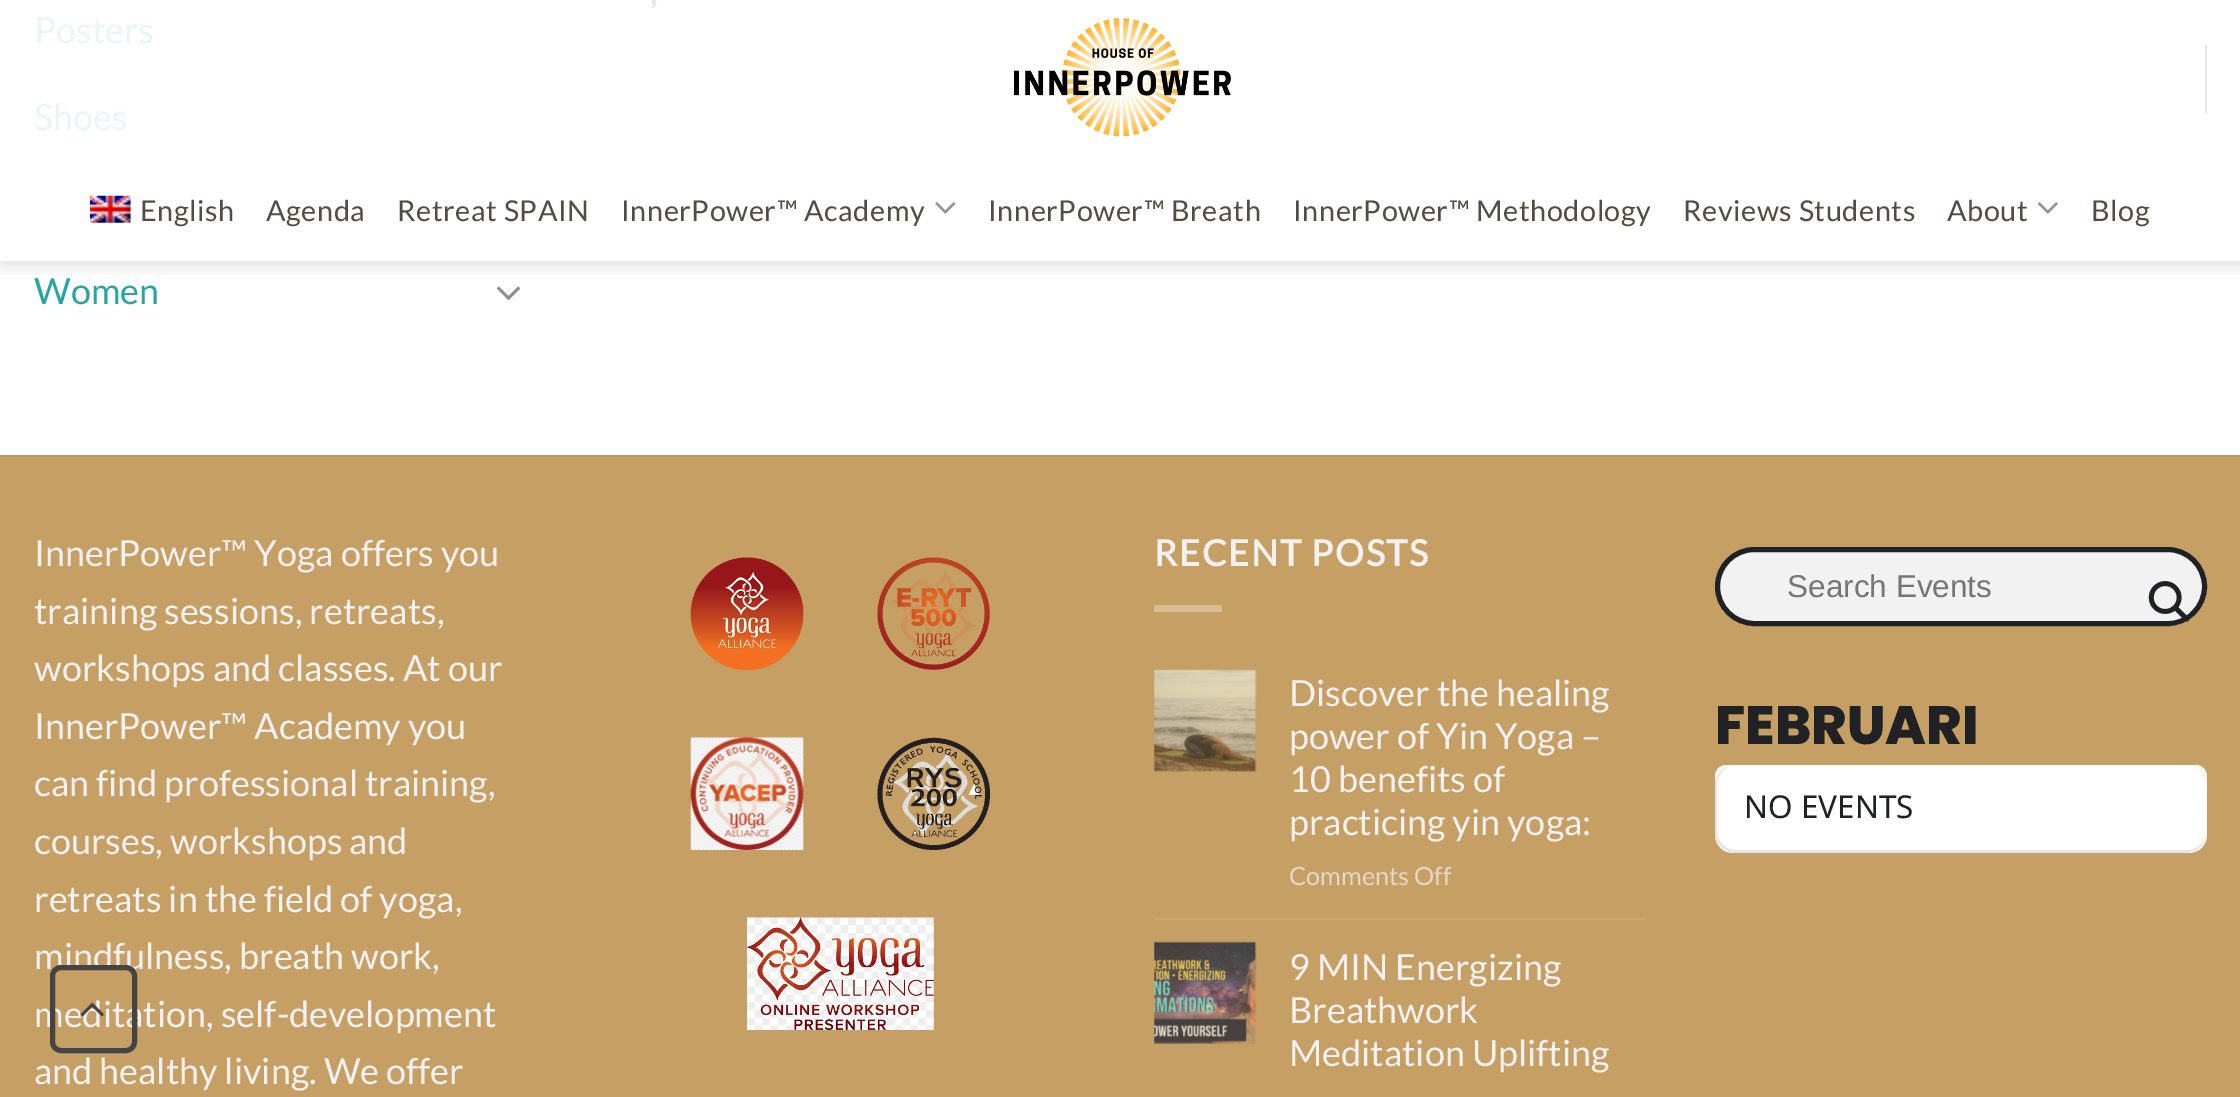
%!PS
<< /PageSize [2240 1097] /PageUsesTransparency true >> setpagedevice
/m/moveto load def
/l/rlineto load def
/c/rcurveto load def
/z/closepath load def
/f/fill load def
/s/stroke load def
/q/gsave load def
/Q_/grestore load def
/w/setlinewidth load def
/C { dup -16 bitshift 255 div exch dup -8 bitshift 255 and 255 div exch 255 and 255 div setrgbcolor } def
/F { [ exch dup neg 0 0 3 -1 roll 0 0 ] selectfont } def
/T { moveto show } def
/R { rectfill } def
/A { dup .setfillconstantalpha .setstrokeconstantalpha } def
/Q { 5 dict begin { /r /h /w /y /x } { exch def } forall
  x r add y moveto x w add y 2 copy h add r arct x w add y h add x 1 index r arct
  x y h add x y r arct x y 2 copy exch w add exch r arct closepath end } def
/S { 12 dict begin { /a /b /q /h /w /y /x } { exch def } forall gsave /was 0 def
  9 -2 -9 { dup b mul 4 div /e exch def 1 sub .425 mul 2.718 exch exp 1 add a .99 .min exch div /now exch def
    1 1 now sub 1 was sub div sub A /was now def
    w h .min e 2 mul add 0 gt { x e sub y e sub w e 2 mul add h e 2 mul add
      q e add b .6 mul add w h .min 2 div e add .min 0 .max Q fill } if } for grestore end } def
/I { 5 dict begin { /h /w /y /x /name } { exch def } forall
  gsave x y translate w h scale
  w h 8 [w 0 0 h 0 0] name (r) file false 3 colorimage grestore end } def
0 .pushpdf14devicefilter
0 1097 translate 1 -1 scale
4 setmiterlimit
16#FFFFFF C
0 0 2240 1097 R
/Lato-Bold 32 F
16#E7E7E7 C
(,) 650 4 T
/Lato-Regular 36 F
16#E9F6F6 C
(Posters) 34 43 T
(Shoes) 34 130 T
16#26A5A3 C
(Women) 34 304 T
(1.rgb) 496 286 25 14 I
q
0 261 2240 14 rectclip
16#000000 C
2 2 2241 261 0 11 .15 S
Q_
(2.rgb) 1014 18 217 119 I
16#E6E6E6 C
2205 45 2 68 R
(3.rgb) 90 195 42 28 I
/Lato-Regular 28.75 F
16#534C40 C
140 221 m .6 0 (English) ashow
266 221 m .6 0 (Agenda) ashow
397 221 m .6 0 (Retreat SPAIN) ashow
621 221 m .6 0 (InnerPower™ Academy) ashow
(4.rgb) 935 202 21 12 I
988 221 m .6 0 (InnerPower™ Breath) ashow
1293 221 m .6 0 (InnerPower™ Methodology) ashow
1683 221 m .6 0 (Reviews Students) ashow
1947 221 m .6 0 (About) ashow
(5.rgb) 2037 202 21 12 I
2091 221 m .6 0 (Blog) ashow
16#C69F65 C
0 457 2240 640 R
16#BC9760 C
0 455 2240 2 R
/Lato-Regular 36 F
16#F1F1F1 C
(InnerPower™ Yoga offers you) 34 566 T
(training sessions, retreats,) 34 624 T
(workshops and classes. At our) 34 681 T
(InnerPower™ Academy you) 34 739 T
(can find professional training,) 34 796 T
(courses, workshops and) 34 854 T
(retreats in the field of yoga,) 34 912 T
(mindfulness, breath work,) 34 969 T
(meditation, self-development) 34 1027 T
(and healthy living. We offer) 34 1084 T
(6.rgb) 690 557 114 113 I
(7.rgb) 877 557 113 113 I
(8.rgb) 690 737 114 113 I
(9.rgb) 877 737 113 113 I
(10.rgb) 747 917 187 113 I
/Lato-Bold 36 F
1154 566 m 1.75 0 (RECENT POSTS) ashow
16#D7BC93 C
1154 605 68 7 R
(11.rgb) 1154 669 103 103 I
/Lato-Regular 36 F
16#F1F1F1 C
(Discover the healing) 1289 706 T
(power of Yin Yoga –) 1289 749 T
(10 benefits of) 1289 792 T
(practicing yin yoga:) 1289 835 T
/Lato-Regular 25.25 F
16#E4D8C7 C
(Comments Off) 1289 885 T
16#CBA771 C
1154 918 493 2 R
(12.rgb) 1154 941 103 103 I
/Lato-Regular 36 F
16#F1F1F1 C
(9 MIN Energizing) 1289 980 T
(Breathwork) 1289 1023 T
(Meditation Uplifting) 1289 1066 T
16#F2F2F2 C
1717.5 549.5 487 74 37 Q q f Q_
16#202124 C
5 w
s
/LiberationSans-Regular 31.5 F
16#757575 C
(Search Events) 1787 597 T
(13.rgb) 2148 581 42 41 I
/Poppins-ExtraBold 54 F
16#202124 C
(FEBRUARI) 1715 744 T
16#F5F5F5 C
1726 765 m 470 0 l 6 0 11 5 11 11 c 0 59 l 0 10 -8 18 -18 18 c -456 0 l -10 0 -18 -8 -18 -18 c 0 -59 l 0 -6 5 -11 11 -11 c z f
16#E5E5E5 C
1737 765 m -10 0 -19 7 -22 16 c 0 56 l 3 9 12 16 22 16 c 448 0 l 12 0 22 -10 22 -23 c 0 11 -10 20 -22 20 c -448 0 l -11 0 -20 -9 -20 -20 c 0 -42 l 0 -13 9 -23 20 -23 c z f
16#FFFFFF C
1737 765 m -10 0 -18 8 -20 19 c 0 49 l 2 10 10 17 20 17 c 448 0 l 11 0 20 -7 22 -17 c 0 -49 l -2 -11 -11 -19 -22 -19 c z f
/NotoSans-Regular 31.5 F
16#202124 C
(NO EVENTS) 1744 818 T
16#444444 C
52.5 967.5 82 83 8.5 Q s
(14.rgb) 80 1002 24 15 I
.poppdf14devicefilter showpage
